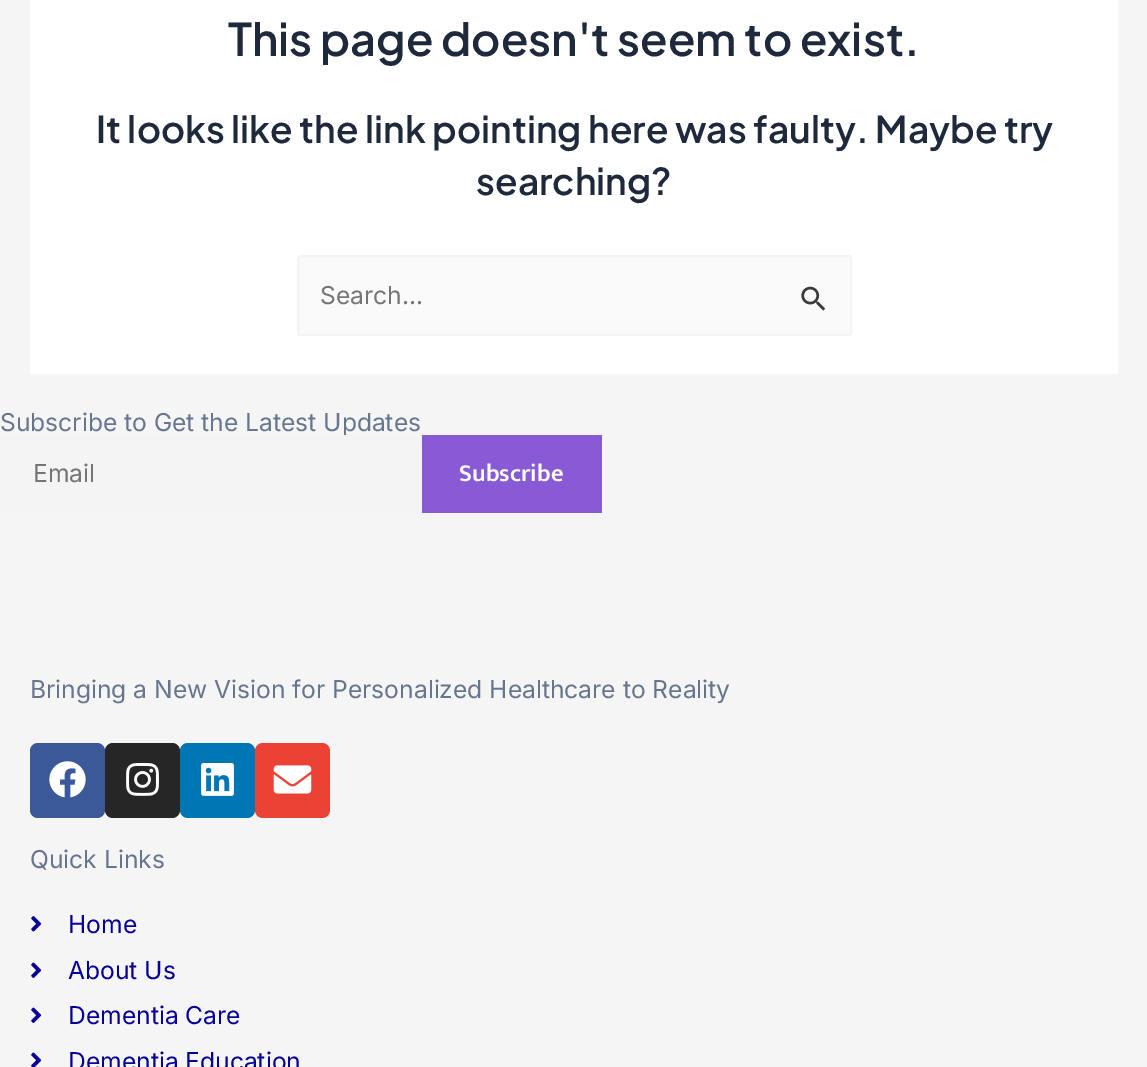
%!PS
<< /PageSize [1147 1067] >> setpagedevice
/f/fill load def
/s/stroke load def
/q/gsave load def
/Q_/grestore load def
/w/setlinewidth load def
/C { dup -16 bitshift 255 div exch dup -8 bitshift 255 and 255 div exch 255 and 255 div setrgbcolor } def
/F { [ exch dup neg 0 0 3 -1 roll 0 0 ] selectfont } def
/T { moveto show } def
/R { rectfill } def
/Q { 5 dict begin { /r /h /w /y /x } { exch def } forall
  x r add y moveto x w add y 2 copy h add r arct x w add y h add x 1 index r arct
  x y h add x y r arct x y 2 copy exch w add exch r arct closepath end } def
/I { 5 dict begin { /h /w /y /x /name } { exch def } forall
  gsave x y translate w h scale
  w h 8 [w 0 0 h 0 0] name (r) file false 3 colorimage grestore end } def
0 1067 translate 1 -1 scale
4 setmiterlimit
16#F5F5F5 C
0 0 1147 1067 R
16#FFFFFF C
30 0 1088 374 R
/PlusJakartaSans-SemiBold 45 F
16#1E293B C
(This page doesn't seem to exist.) 228 56 T
/PlusJakartaSans-SemiBold 36.95 F
(It looks like the link pointing here was faulty. Maybe try) 96 143 T
(searching?) 476 195 T
16#FAFAFA C
298 256 553 79 2 Q q f Q_
16#F2F5F7 C
2 w
s
/Inter-Regular 24.6 F
16#757575 C
(Search...) 320 304 T
(1.rgb) 801 286 25 25 I
16#67768E C
(Subscribe to Get the Latest Updates) 0 431 T
16#F4F4F4 C
0 435 422 78 3 Q f
16#757575 C
(Email) 33 482 T
16#895AD5 C
422 435 180 78 R
/MuktaVaani-SemiBold 24.6 F
16#FFFFFF C
(Subscribe) 459 481 T
/Inter-Regular 24.6 F
16#67768E C
(Bringing a New Vision for Personalized Healthcare to Reality) 30 698 T
16#3B5998 C
30 743 75 75 8 Q f
(2.rgb) 49 761 37 37 I
16#262626 C
105 743 75 75 8 Q f
(3.rgb) 126 762 33 34 I
16#0077B5 C
180 743 75 75 8 Q f
(4.rgb) 201 763 33 33 I
16#EA4335 C
255 743 75 75 8 Q f
(5.rgb) 273 765 39 29 I
16#67768E C
(Quick Links) 30 868 T
(6.rgb) 31 916 11 16 I
16#060097 C
(Home) 68 933 T
(7.rgb) 31 962 11 16 I
(About Us) 68 979 T
(7.rgb) 31 1007 11 16 I
(Dementia Care) 68 1024 T
(8.rgb) 31 1052 11 15 I
(Dementia Education) 68 1070 T
showpage
